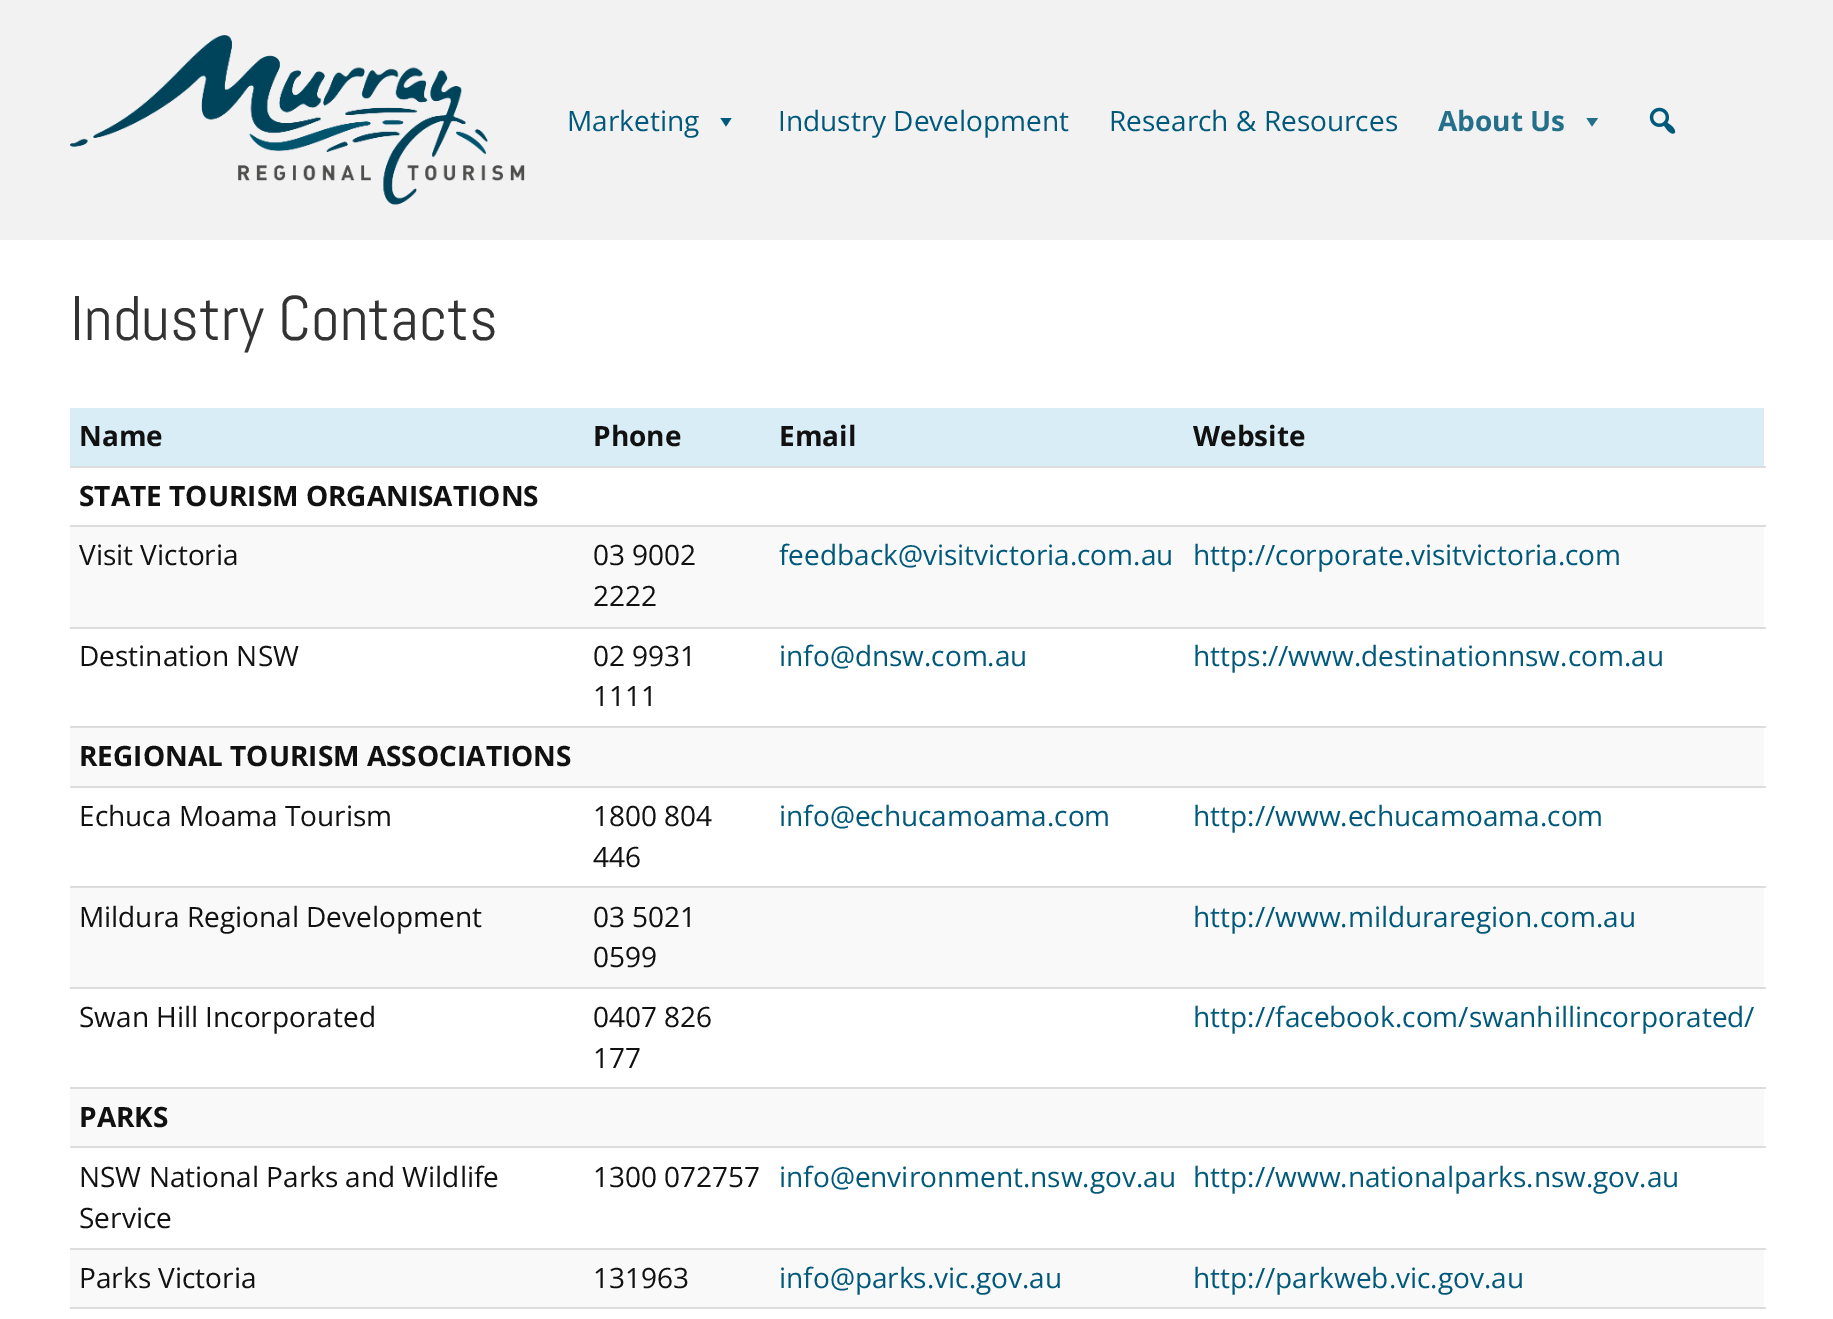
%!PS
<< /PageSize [1833 1319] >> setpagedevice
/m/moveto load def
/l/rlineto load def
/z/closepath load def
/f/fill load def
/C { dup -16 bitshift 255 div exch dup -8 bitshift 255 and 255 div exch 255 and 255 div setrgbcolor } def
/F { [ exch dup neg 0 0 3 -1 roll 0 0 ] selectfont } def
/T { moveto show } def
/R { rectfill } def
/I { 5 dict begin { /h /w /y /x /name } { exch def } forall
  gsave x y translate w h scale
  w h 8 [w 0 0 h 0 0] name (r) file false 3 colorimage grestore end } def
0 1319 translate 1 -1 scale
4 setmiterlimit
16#F2F2F2 C
0 0 1833 1319 R
(1.rgb) 70 35 455 170 I
/OpenSans-Regular 28 F
16#00597A C
(Marketing) 567 131 T
731.5 118 m -5.5 8.5 l -5.5 -8.5 l z f
(Industry Development) 778 131 T
(Research & Resources) 1109 131 T
/OpenSans-Bold 28 F
16#246F89 C
(About Us) 1438 131 T
1598 118 m -6 8.5 l -5.5 -8.5 l z f
(2.rgb) 1649 107 27 27 I
16#FFFFFF C
0 240 1833 1079 R
/Abel-Regular 63 F
16#333333 C
(Industry Contacts) 70 340 T
16#D9EDF7 C
70 408 1694 58 R
/OpenSans-Bold 28 F
16#111111 C
(Name) 79 446 T
(Phone) 593 446 T
(Email) 779 446 T
(Website) 1193 446 T
16#DDDDDD C
70 466 1696 2 R
16#111111 C
(STATE TOURISM ORGANISATIONS) 79 506 T
16#F9F9F9 C
70 527 1694 100 R
/OpenSans-Regular 28 F
16#111111 C
(Visit Victoria) 79 565 T
(03 9002) 593 565 T
(2222) 593 606 T
16#00597A C
(feedback@visitvictoria.com.au) 779 565 T
16#DDDDDD C
70 525 1696 2 R
16#00597A C
(http://corporate.visitvictoria.com) 1193 565 T
16#111111 C
(Destination NSW) 79 666 T
(02 9931) 593 666 T
(1111) 593 706 T
16#00597A C
(info@dnsw.com.au) 779 666 T
16#DDDDDD C
70 627 1696 2 R
16#00597A C
(https://www.destinationnsw.com.au) 1193 666 T
16#DDDDDD C
70 726 1696 2 R
16#F9F9F9 C
70 728 1694 58 R
/OpenSans-Bold 28 F
16#111111 C
(REGIONAL TOURISM ASSOCIATIONS) 79 766 T
/OpenSans-Regular 28 F
(Echuca Moama Tourism) 79 826 T
(1800 804) 593 826 T
(446) 593 867 T
16#00597A C
(info@echucamoama.com) 779 826 T
16#DDDDDD C
70 786 1696 2 R
16#00597A C
(http://www.echucamoama.com) 1193 826 T
16#F9F9F9 C
70 888 1694 99 R
16#111111 C
(Mildura Regional Development) 79 927 T
(03 5021) 593 927 T
(0599) 593 967 T
16#DDDDDD C
70 886 1696 2 R
16#00597A C
(http://www.milduraregion.com.au) 1193 927 T
16#111111 C
(Swan Hill Incorporated) 79 1027 T
(0407 826) 593 1027 T
(177) 593 1068 T
16#DDDDDD C
70 987 1696 2 R
16#00597A C
(http://facebook.com/swanhillincorporated/) 1193 1027 T
16#DDDDDD C
70 1087 1696 2 R
16#F9F9F9 C
70 1089 1694 57 R
/OpenSans-Bold 28 F
16#111111 C
(PARKS) 79 1127 T
/OpenSans-Regular 28 F
(NSW National Parks and Wildlife) 79 1187 T
(Service) 79 1228 T
(1300 072757) 593 1187 T
16#00597A C
(info@environment.nsw.gov.au) 779 1187 T
16#DDDDDD C
70 1146 1696 2 R
16#00597A C
(http://www.nationalparks.nsw.gov.au) 1193 1187 T
16#F9F9F9 C
70 1250 1694 57 R
16#111111 C
(Parks Victoria) 79 1288 T
(131963) 593 1288 T
16#00597A C
(info@parks.vic.gov.au) 779 1288 T
16#DDDDDD C
70 1248 1696 2 R
16#00597A C
(http://parkweb.vic.gov.au) 1193 1288 T
16#DDDDDD C
70 1307 1696 2 R
showpage
